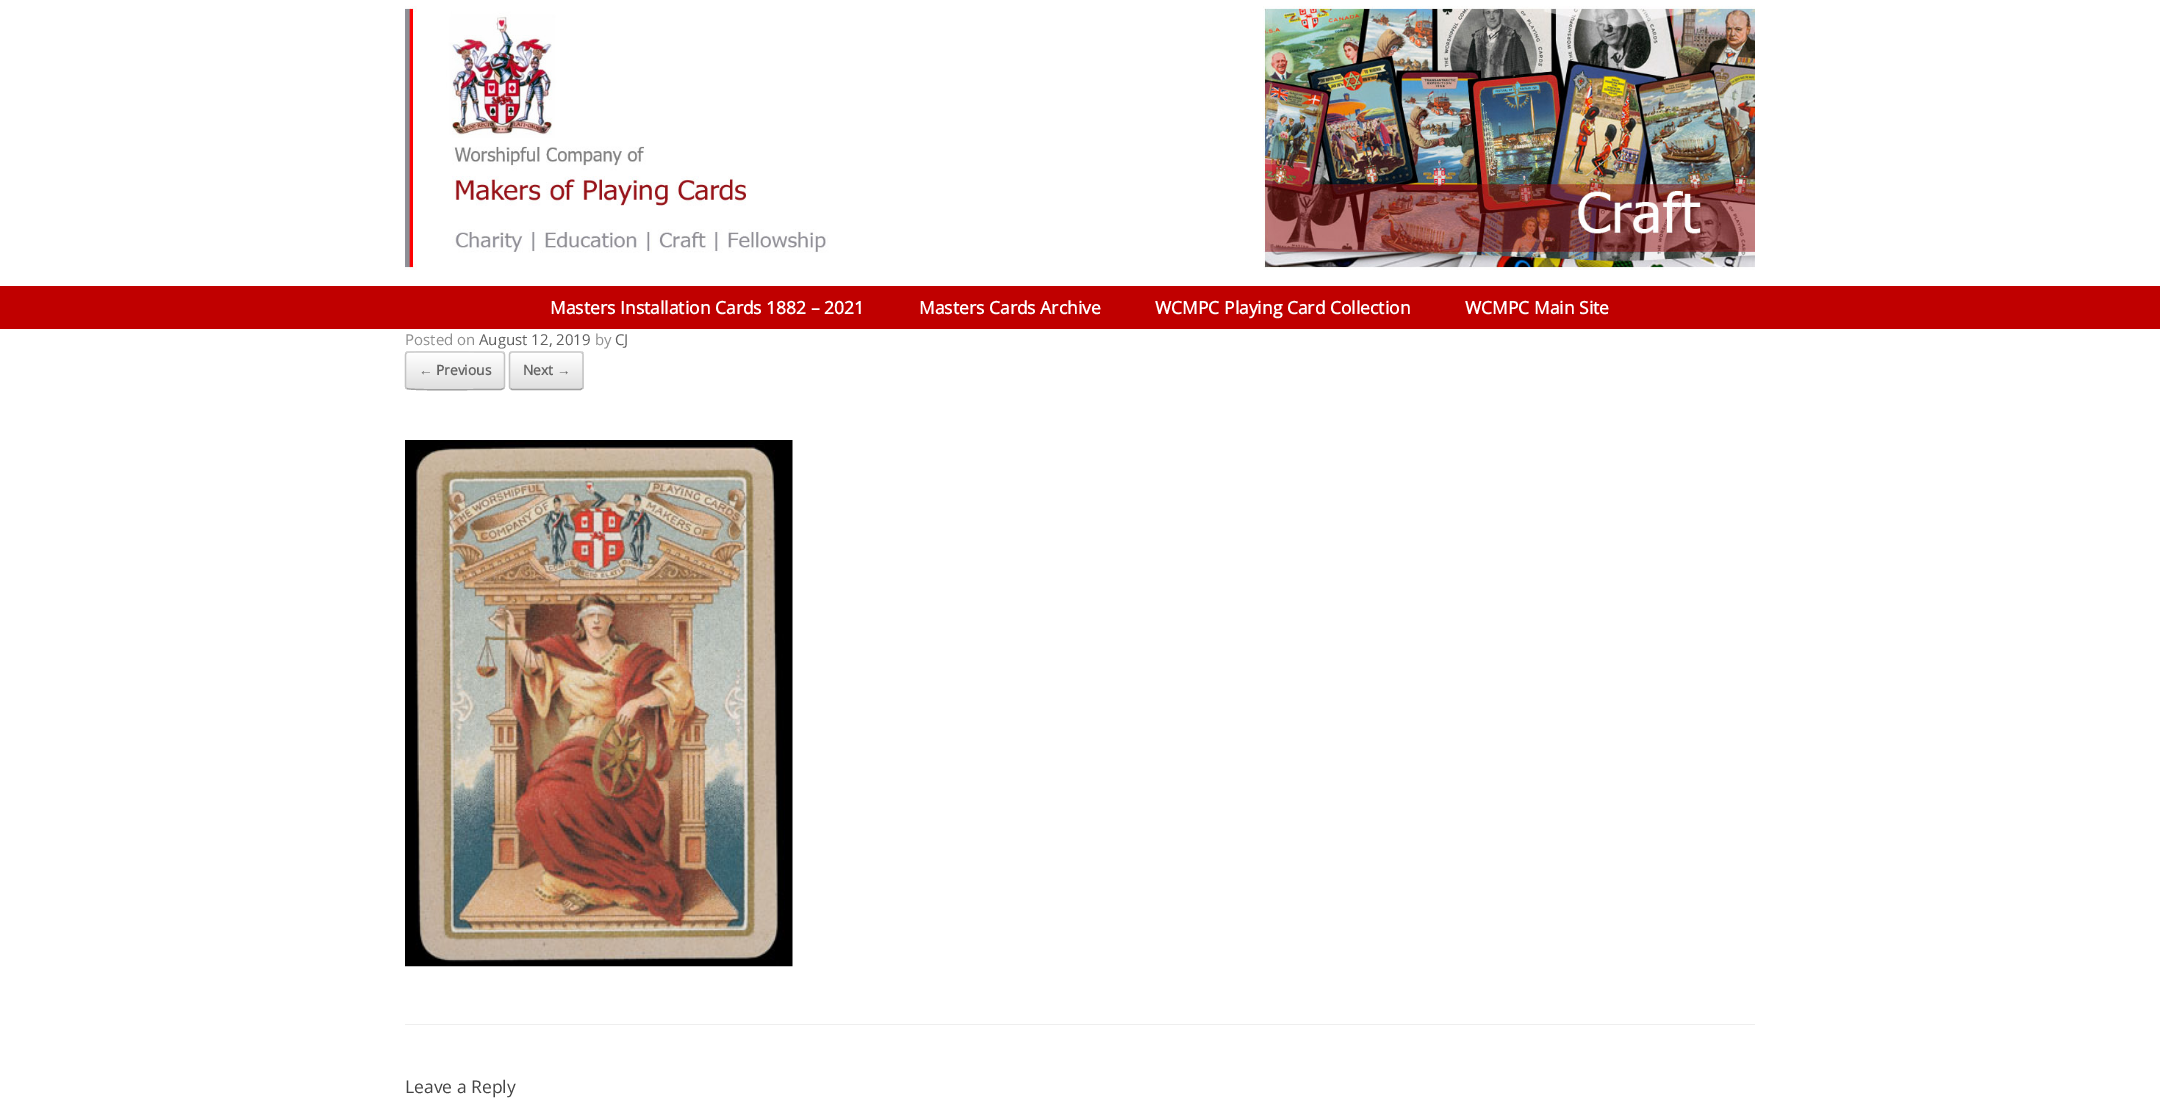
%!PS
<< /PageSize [2160 1103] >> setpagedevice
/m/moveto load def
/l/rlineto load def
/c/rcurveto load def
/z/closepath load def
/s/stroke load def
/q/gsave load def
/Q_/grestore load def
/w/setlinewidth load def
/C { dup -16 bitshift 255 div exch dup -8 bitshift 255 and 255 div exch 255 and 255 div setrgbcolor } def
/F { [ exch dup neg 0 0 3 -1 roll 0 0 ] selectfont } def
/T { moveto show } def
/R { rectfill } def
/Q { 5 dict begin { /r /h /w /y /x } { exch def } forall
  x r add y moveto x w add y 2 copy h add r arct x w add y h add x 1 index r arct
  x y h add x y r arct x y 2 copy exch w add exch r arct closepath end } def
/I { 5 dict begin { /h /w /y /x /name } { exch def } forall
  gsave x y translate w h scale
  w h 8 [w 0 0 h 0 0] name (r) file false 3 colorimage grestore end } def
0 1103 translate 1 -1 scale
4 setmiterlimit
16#FFFFFF C
0 0 2160 1103 R
(1.rgb) 405 6 1350 264 I
16#C00000 C
0 286 2160 43 R
/OpenSans-Bold 17.5 F
16#FFFFFF C
(Masters Installation Cards 1882 – 2021) 550 314 T
(Masters Cards Archive) 919 314 T
(WCMPC Playing Card Collection) 1155 314 T
(WCMPC Main Site) 1465 314 T
16#EEEEEE C
405 1024 1350 1 R
/NotoSans-Regular 15 F
16#8F8F8F C
(P) 405 345 T
/OpenSans-Regular 15 F
(osted on) 414 345 T
16#5E5E5E C
(August 12, 2019) 479 345 T
16#8F8F8F C
(by) 595 345 T
16#5E5E5E C
(CJ) 615 345 T
q
405 351 100 39 4 Q clip newpath
q 405 351 m 100 0 l 0 2 l -100 0 l z clip newpath
<< /ShadingType 2 /ColorSpace /DeviceRGB /Coords [406 353 406 316] /Extend [true true] /Function << /FunctionType 2 /Domain [0 1] /C0 [.875 .875 .875] /C1 [1 1 1] /N 1 >> >> shfill Q_
q 405 353 m 100 0 l 0 36 l -100 0 l z clip newpath
<< /ShadingType 2 /ColorSpace /DeviceRGB /Coords [406 389 406 353] /Extend [true true] /Function << /FunctionType 2 /Domain [0 1] /C0 [.875 .875 .875] /C1 [1 1 1] /N 1 >> >> shfill Q_
Q_
16#D2D2D2 C
1.2 w
406.5 353 m .5 -.5 l 2 -1.5 70.5 -.5 79 -.5 c 15 0 l 2.5 1 l s
16#C3C3C3 C
503.5 353 m .5 .5 1 1 1 2 c 0 31 l 0 1 -.5 2 -1 2.5 c s
16#9F9F9F C
503.5 388.5 m -2.5 1 l -15 0 l -8.5 0 -77 1 -79 -1 c -.5 0 l s
16#C3C3C3 C
406.5 388.5 m -.5 -.5 -1 -1.5 -1 -2.5 c 0 -31 l 0 -1 .5 -1.5 1 -2 c s
/LiberationSerif-Bold 13.75 F
16#646464 C
(←) 419 375 T
/OpenSans-Bold 13.75 F
(Previous) 436 375 T
q
509 351 75 39 4 Q clip newpath
q 509 351 m 75 0 l 0 2 l -75 0 l z clip newpath
<< /ShadingType 2 /ColorSpace /DeviceRGB /Coords [510 353 510 316] /Extend [true true] /Function << /FunctionType 2 /Domain [0 1] /C0 [.875 .875 .875] /C1 [1 1 1] /N 1 >> >> shfill Q_
q 509 353 m 75 0 l 0 36 l -75 0 l z clip newpath
<< /ShadingType 2 /ColorSpace /DeviceRGB /Coords [510 389 510 353] /Extend [true true] /Function << /FunctionType 2 /Domain [0 1] /C0 [.875 .875 .875] /C1 [1 1 1] /N 1 >> >> shfill Q_
Q_
16#D2D2D2 C
510.5 353 m 1.5 -1 l 68.5 0 l 1.5 1 l s
16#C3C3C3 C
582 353 m 1 .5 1 1 1 2 c 0 31 l 0 1 0 2 -1 2.5 c s
16#9F9F9F C
582 388.5 m -1.5 1 l -68.5 0 l -1.5 -1 l s
16#C3C3C3 C
510.5 388.5 m -1 -.5 -1 -1.5 -1 -2.5 c 0 -31 l 0 -1 0 -1.5 1 -2 c s
16#646464 C
(Next) 523 375 T
/LiberationSerif-Bold 13.75 F
(→) 557 375 T
(2.rgb) 405 440 388 527 I
/OpenSans-Regular 17.5 F
16#444444 C
(Leave a Reply) 405 1093 T
showpage
